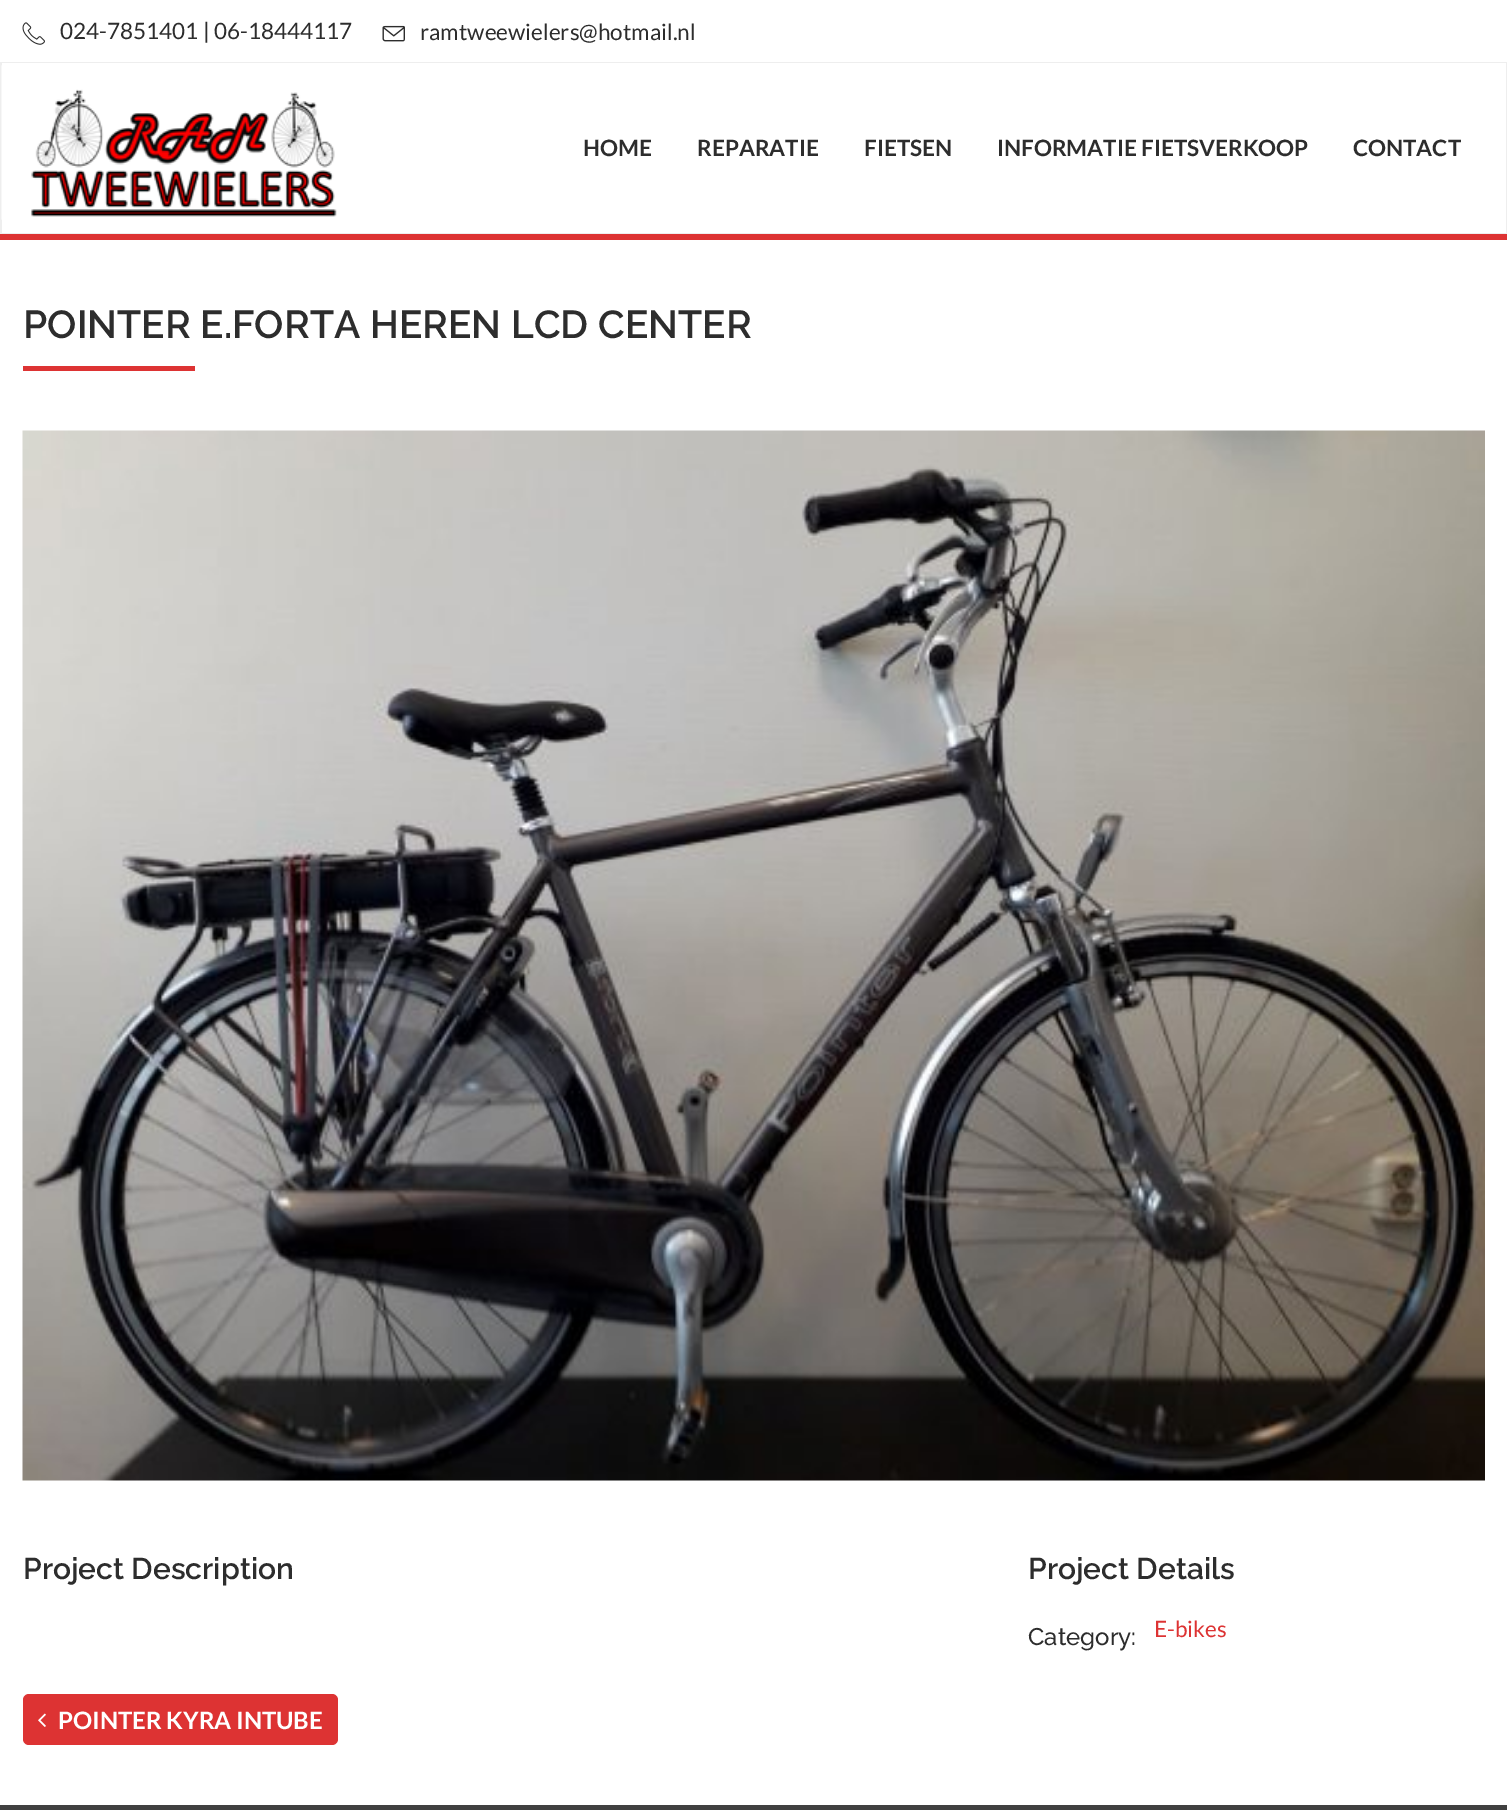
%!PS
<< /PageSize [1507 1810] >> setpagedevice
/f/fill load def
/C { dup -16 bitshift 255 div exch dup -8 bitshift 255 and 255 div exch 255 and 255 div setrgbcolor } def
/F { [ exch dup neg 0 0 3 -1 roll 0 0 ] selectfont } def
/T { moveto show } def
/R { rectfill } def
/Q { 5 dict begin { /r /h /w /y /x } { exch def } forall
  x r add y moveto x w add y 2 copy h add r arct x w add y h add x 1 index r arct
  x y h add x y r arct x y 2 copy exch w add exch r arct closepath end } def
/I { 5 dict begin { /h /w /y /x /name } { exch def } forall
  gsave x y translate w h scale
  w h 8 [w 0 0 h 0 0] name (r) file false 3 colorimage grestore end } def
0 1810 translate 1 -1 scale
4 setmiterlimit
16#FFFFFF C
0 0 1507 1810 R
(1.rgb) 22 22 23 23 I
/Lato-Regular 22.5 F
16#2D2D2D C
(024-7851401 | 06-18444117) 60 39 T
(2.rgb) 382 25 23 17 I
(ramtweewielers@hotmail.nl) 420 40 T
16#EEEEEE C
0 62 1507 172 R
16#FFFFFF C
2 63 1504 170 R
(3.rgb) 1 65 336 155 I
/Lato-Bold 22.5 F
16#2D2D2D C
(HOME) 583 156 T
(REPARATIE) 697 156 T
(FIETSEN) 864 156 T
(INFORMATIE FIETSVERKOOP) 997 156 T
(CONTACT) 1353 156 T
16#DD3333 C
0 234 1507 6 R
/Raleway-SemiBold 39 F
16#2D2D2D C
(POINTER E.FORTA HEREN LCD CENTER) 23 338 T
16#DD3333 C
23 366 172 5 R
(4.rgb) 22 430 1463 1051 I
/Raleway-SemiBold 30 F
16#2D2D2D C
(Project Description) 23 1579 T
(Project Details) 1028 1579 T
/Raleway-Medium 24 F
(Category:) 1028 1645 T
/Lato-Regular 22.5 F
16#DD3333 C
(E-bikes) 1154 1637 T
23 1694 315 51 6 Q f
(5.rgb) 38 1713 8 14 I
/Lato-Bold 24 F
16#FFFFFF C
(POINTER KYRA INTUBE) 58 1729 T
16#404040 C
0 1805 1507 5 R
showpage
